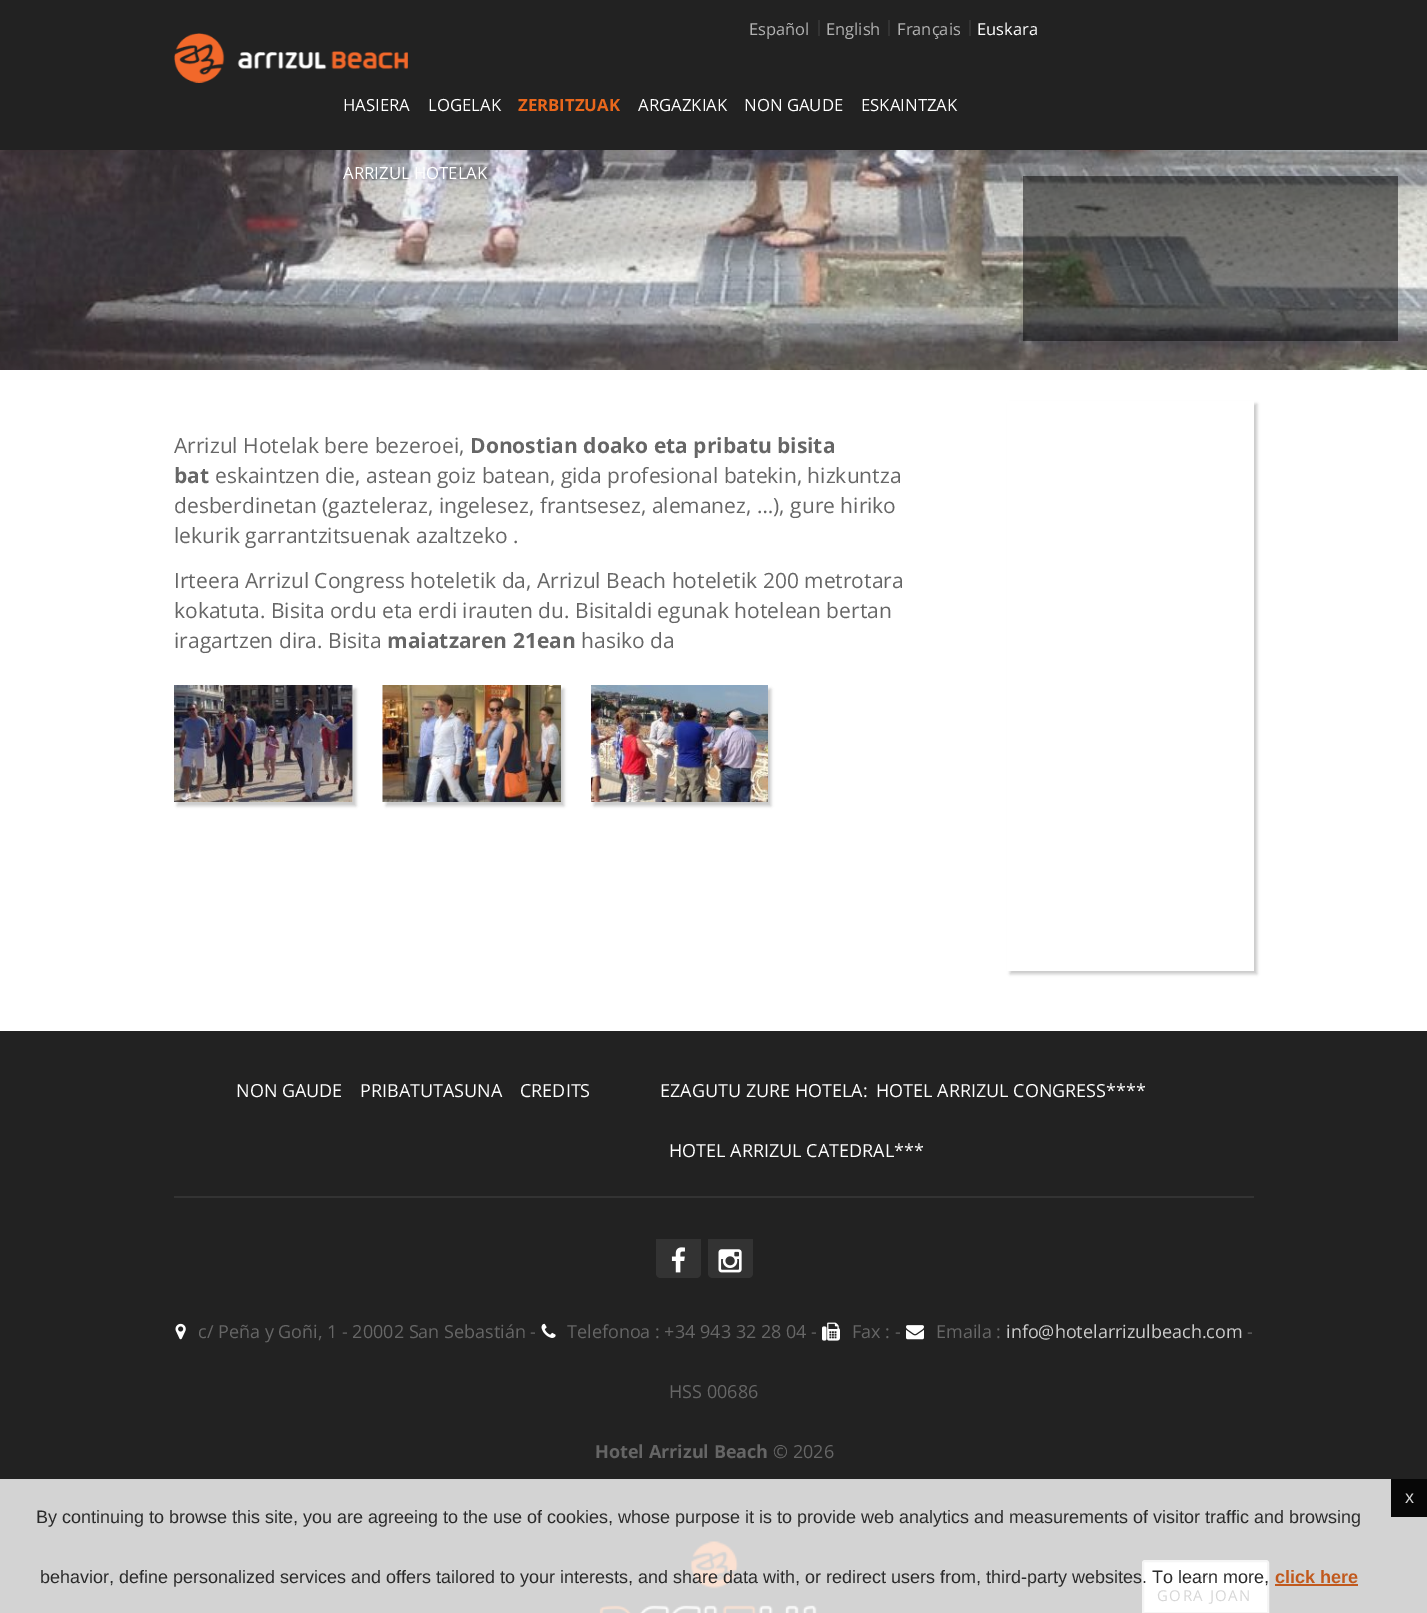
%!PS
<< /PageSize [1427 1613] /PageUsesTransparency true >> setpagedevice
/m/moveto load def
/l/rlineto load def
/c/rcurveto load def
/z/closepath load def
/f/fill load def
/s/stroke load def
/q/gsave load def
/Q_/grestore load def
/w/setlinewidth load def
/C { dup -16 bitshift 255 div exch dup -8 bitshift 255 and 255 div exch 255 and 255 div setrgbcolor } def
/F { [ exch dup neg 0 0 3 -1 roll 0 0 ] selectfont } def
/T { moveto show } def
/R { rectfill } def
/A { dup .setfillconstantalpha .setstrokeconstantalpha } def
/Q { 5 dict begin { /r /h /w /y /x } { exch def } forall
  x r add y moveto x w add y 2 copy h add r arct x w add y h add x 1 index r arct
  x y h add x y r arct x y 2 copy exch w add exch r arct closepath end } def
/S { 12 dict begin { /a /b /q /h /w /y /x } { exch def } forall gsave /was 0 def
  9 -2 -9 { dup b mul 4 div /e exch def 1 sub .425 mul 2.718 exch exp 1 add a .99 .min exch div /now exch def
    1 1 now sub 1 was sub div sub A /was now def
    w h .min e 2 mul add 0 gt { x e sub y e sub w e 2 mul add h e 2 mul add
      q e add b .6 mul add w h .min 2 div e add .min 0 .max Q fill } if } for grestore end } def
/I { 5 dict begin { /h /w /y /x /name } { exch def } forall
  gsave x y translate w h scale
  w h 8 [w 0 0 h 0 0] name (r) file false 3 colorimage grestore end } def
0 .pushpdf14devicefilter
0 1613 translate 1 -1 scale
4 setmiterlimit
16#FFFFFF C
0 0 1427 1613 R
16#222222 C
0 0 1427 150 R
16#333333 C
818 20 2 16 R
/OpenSans-Regular 16.5 F
16#B2B2B2 C
(Español) 749 35 T
16#333333 C
888 20 2 16 R
16#B2B2B2 C
(English) 826 35 T
16#333333 C
969 20 2 16 R
16#B2B2B2 C
(Français) 897 35 T
16#FFFFFF C
(Euskara) 977 35 T
(1.rgb) 174 33 234 50 I
/OpenSans-Regular 16.75 F
(HASIERA) 343 111 T
(LOGELAK) 428 111 T
/OpenSans-Bold 16.75 F
16#E9671C C
(ZERBITZUAK) 518 111 T
/OpenSans-Regular 16.75 F
16#FFFFFF C
(ARGAZKIAK) 638 111 T
(NON GAUDE) 744 111 T
(ESKAINTZAK) 861 111 T
(2.rgb) 0 150 1427 220 I
(ARRIZUL HOTELAK) 343 179 T
0.5 A
16#000000 C
1023 176 375 165 R
/OpenSans-Regular 21 F
1 A
16#666666 C
(Arrizul Hotelak bere bezeroei,) 174 453 T
/OpenSans-Bold 21 F
(Donostian doako eta pribatu bisita) 470 453 T
(bat) 174 483 T
/OpenSans-Regular 21 F
(eskaintzen die, astean goiz batean, gida profesional batekin, hizkuntza) 215 483 T
(desberdinetan \(gazteleraz, ingelesez, frantsesez, alemanez, …\), gure hiriko) 174 513 T
(lekurik garrantzitsuenak azaltzeko .) 174 543 T
(Irteera Arrizul Congress hoteletik da, Arrizul Beach hoteletik 200 metrotara) 174 588 T
(kokatuta. Bisita ordu eta erdi irauten du. Bisitaldi egunak hotelean bertan) 174 618 T
(iragartzen dira. Bisita) 174 648 T
/OpenSans-Bold 21 F
(maiatzaren 21ean) 387 648 T
/OpenSans-Regular 21 F
(hasiko da) 581 648 T
16#000000 C
177 689 179 117 0 1.5 .2 S
(3.rgb) 174 685 179 117 I
386 689 178 117 0 1.5 .2 S
(4.rgb) 382 685 179 117 I
594 689 177 117 0 1.5 .2 S
(5.rgb) 591 685 177 117 I
q
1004 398 m 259 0 l 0 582 l -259 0 l z 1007 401 m 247 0 l 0 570 l -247 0 l z eoclip newpath
1010 404 247 570 0 1.5 .2 S
Q_
16#222222 C
0 1031 1427 448 R
16#D3D3D3 C
0 1479 1427 134 R
/OpenSans-Regular 18 F
16#FFFFFF C
(NON GAUDE) 236 1097 T
(PRIBATUTASUNA) 360 1097 T
(CREDITS) 520 1097 T
(EZAGUTU ZURE HOTELA:) 660 1097 T
(HOTEL ARRIZUL CONGRESS****) 876 1097 T
(HOTEL ARRIZUL CATEDRAL***) 669 1157 T
16#333333 C
174 1196 1080 2 R
656 1239 m 45 0 l 0 34 l 0 3 -2 5 -5 5 c -35 0 l -3 0 -5 -2 -5 -5 c z f
(6.rgb) 671 1247 14 26 I
708 1239 m 45 0 l 0 34 l 0 3 -2 5 -5 5 c -35 0 l -3 0 -5 -2 -5 -5 c z f
(7.rgb) 718 1249 24 24 I
(8.rgb) 175 1323 11 17 I
16#666666 C
(c/ Peña y Goñi, 1 - 20002 San Sebastián -) 198 1338 T
(9.rgb) 541 1323 15 15 I
(Telefonoa : +34 943 32 28 04 -) 567 1338 T
(10.rgb) 822 1322 18 19 I
(Fax : -) 852 1338 T
(11.rgb) 906 1325 18 15 I
(Emaila :) 936 1338 T
16#CCCCCC C
(info@hotelarrizulbeach.com) 1006 1338 T
16#666666 C
(-) 1247 1338 T
(HSS 00686) 669 1398 T
/OpenSans-Bold 18 F
(Hotel Arrizul Beach) 595 1458 T
/OpenSans-Regular 18 F
(© 2026) 773 1458 T
(12.rgb) 599 1541 218 72 I
16#070707 C
1391 1479 36 38 R
/LiberationSans-Regular 18 F
16#D6D6D6 C
(x) 1405 1503 T
16#2A2A2A C
(By continuing to browse this site, you are agreeing to the use of cookies, whose purpose it is to provide web analytics and measurements of visitor traffic and browsing) 36 1523 T
16#FFFFFF C
1145 1561 m 121 0 l 1 0 2 1 2 2 c 0 50 l -125 0 l 0 -50 l 0 -1 1 -2 2 -2 c z q f Q_
16#F5F5F5 C
2 w
s
(13.rgb) 1200 1573 9 6 I
16#2A2A2A C
(behavior, define personalized services and offers tailored to your interests, and share data with, or redirect users from, third-party websites. To learn more,) 40 1583 T
/LiberationSans-Bold 18 F
16#C1591D C
(click here) 1275 1583 T
1275 1584 83 2 R
/OpenSans-Regular 15 F
16#D6D6D6 C
1157 1601 m 1.5 0 (GORA JOAN) ashow
.poppdf14devicefilter showpage
